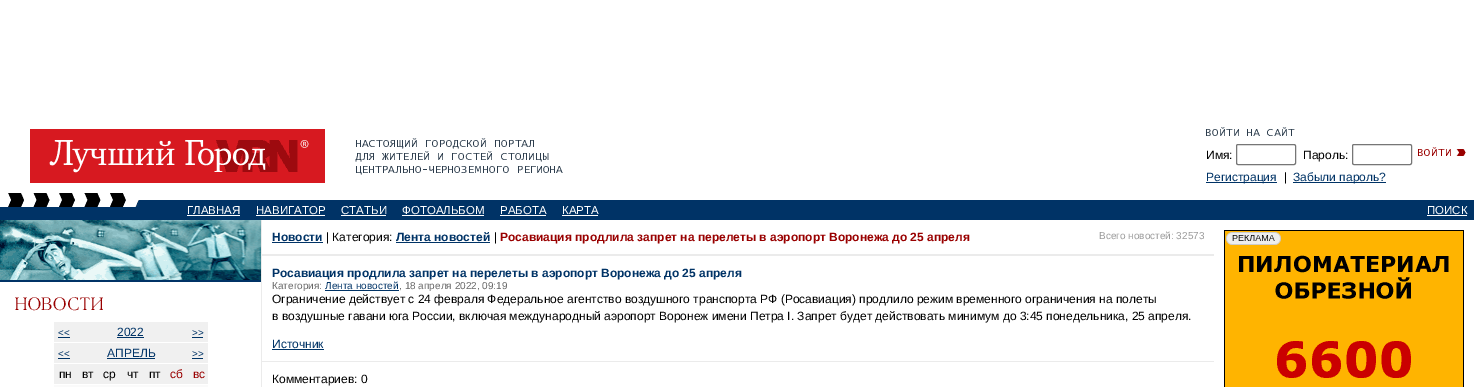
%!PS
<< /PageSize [1474 387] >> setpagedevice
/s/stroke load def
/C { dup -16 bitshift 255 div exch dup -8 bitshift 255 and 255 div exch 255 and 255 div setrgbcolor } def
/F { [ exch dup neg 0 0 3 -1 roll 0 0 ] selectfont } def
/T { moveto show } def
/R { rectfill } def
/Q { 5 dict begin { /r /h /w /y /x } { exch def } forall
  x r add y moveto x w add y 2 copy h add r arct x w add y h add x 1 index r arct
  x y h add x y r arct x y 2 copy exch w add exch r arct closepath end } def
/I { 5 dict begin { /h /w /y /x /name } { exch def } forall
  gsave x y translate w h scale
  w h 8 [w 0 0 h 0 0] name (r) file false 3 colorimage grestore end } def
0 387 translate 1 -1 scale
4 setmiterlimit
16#FFFFFF C
0 0 1474 387 R
(1.rgb) 30 129 295 54 I
(2.rgb) 355 138 208 37 I
(3.rgb) 1206 127 89 9 I
/LiberationSans-Regular 12 F
16#000000 C
(Имя:) 1206 159 T
16#767676 C
1236.5 144.5 59 20 1.5 Q s
16#000000 C
(Пароль:) 1303 159 T
16#767676 C
1352.5 144.5 59 20 1.5 Q s
(4.rgb) 1418 147 48 9 I
16#003366 C
1206 182 71 1 R
(Регистрация) 1206 181 T
16#000000 C
(|) 1284 181 T
16#003366 C
1293 182 93 1 R
(Забыли пароль?) 1293 181 T
(5.rgb) 8 193 118 7 I
0 200 1474 20 R
(6.rgb) 0 200 139 7 I
/LiberationSans-Regular 11.5 F
16#FFFFFF C
(ГЛАВНАЯ) 187 214 T
187 215 53 1 R
(НАВИГАТОР) 256 214 T
256 215 69 1 R
(СТАТЬИ) 341 214 T
341 215 45 1 R
(ФОТОАЛЬБОМ) 402 214 T
402 215 82 1 R
(РАБОТА) 500 214 T
500 215 46 1 R
(КАРТА) 562 214 T
562 215 36 1 R
(ПОИСК) 1427 214 T
1427 215 40 1 R
16#EBEBEB C
261 220 1 167 R
(7.rgb) 0 220 261 62 I
(8.rgb) 15 297 88 14 I
16#F0F0F0 C
54 322 154 20 R
/LiberationSans-Regular 10 F
16#003366 C
(<<) 58 336 T
58 337 12 1 R
/LiberationSans-Regular 12 F
(2022) 117 336 T
117 337 27 1 R
/LiberationSans-Regular 10 F
(>>) 192 336 T
192 337 11 1 R
16#F0F0F0 C
54 343 154 20 R
16#003366 C
(<<) 58 357 T
58 358 12 1 R
/LiberationSans-Regular 12 F
(АПРЕЛЬ) 107 357 T
107 358 48 1 R
/LiberationSans-Regular 10 F
(>>) 192 357 T
192 358 11 1 R
16#F0F0F0 C
54 364 154 20 R
/LiberationSans-Regular 12 F
16#000000 C
(пн) 59 378 T
(вт) 82 378 T
(ср) 103 378 T
(чт) 127 378 T
(пт) 149 378 T
16#990000 C
(сб) 170 378 T
(вс) 193 378 T
16#FAFAFA C
54 385 154 2 R
16#EBEBEB C
262 254 952 2 R
/LiberationSans-Bold 12 F
16#003366 C
(Новости) 272 241 T
272 242 51 1 R
/LiberationSans-Regular 12 F
16#000000 C
(| Категория:) 326 241 T
/LiberationSans-Bold 12 F
16#003366 C
(Лента новостей) 396 241 T
396 242 94 1 R
/LiberationSans-Regular 12 F
16#000000 C
(|) 494 241 T
/LiberationSans-Bold 12 F
16#990000 C
(Росавиация продлила запрет на перелеты в аэропорт Воронежа до 25 апреля) 500 241 T
/LiberationSans-Regular 10 F
16#999999 C
(Всего новостей: 32573) 1099 239 T
/LiberationSans-Bold 12 F
16#003366 C
(Росавиация продлила запрет на перелеты в аэропорт Воронежа до 25 апреля) 272 277 T
/LiberationSans-Regular 10 F
16#666666 C
(Категория:) 272 289 T
16#003366 C
(Лента новостей) 325 289 T
16#666666 C
(, 18 апреля 2022, 09:19) 399 289 T
16#003366 C
325 290 74 1 R
/LiberationSans-Regular 12 F
16#000000 C
(Ограничение действует с 24 февраля Федеральное агентство воздушного транспорта РФ \(Росавиация\) продлило режим временного ограничения на полеты) 272 303 T
(в воздушные гавани юга России, включая международный аэропорт Воронеж имени Петра I. Запрет будет действовать минимум до 3:45 понедельника, 25 апреля.) 272 320 T
16#003366 C
(Источник) 272 348 T
272 349 52 1 R
16#EBEBEB C
262 361 952 1 R
16#000000 C
(Комментариев: 0) 272 383 T
(9.rgb) 1224 230 240 157 I
showpage
